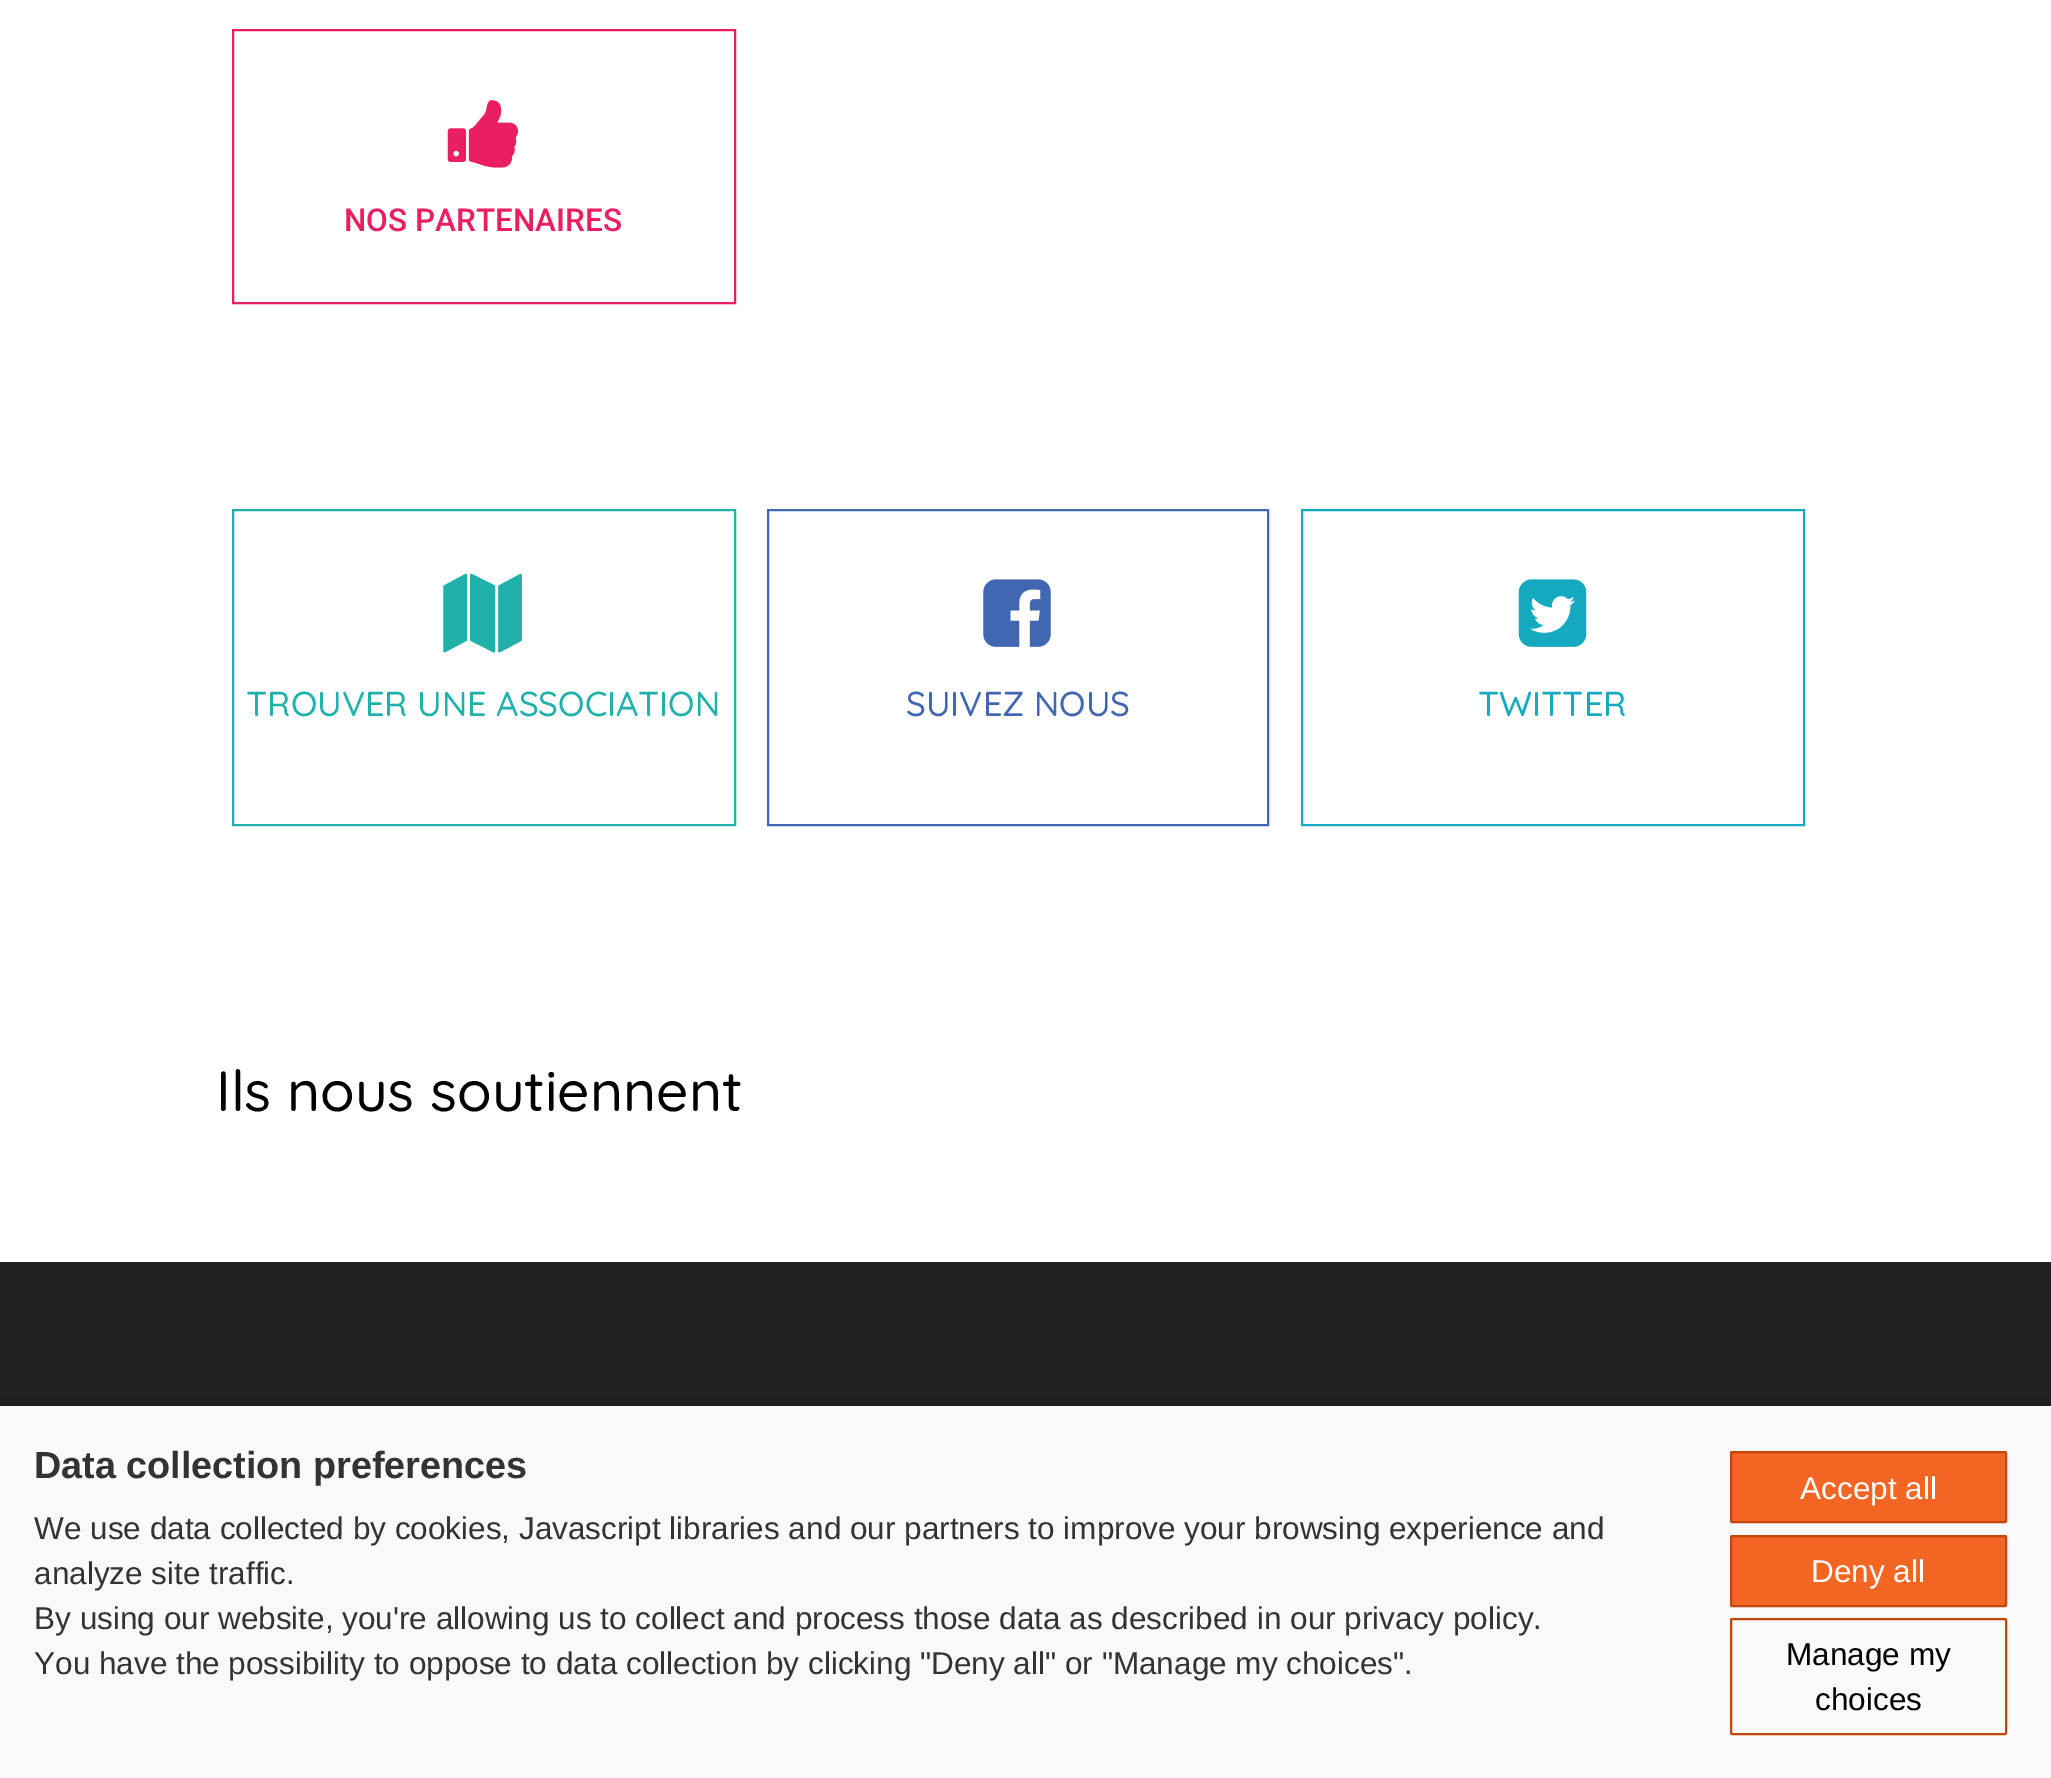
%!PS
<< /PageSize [2051 1778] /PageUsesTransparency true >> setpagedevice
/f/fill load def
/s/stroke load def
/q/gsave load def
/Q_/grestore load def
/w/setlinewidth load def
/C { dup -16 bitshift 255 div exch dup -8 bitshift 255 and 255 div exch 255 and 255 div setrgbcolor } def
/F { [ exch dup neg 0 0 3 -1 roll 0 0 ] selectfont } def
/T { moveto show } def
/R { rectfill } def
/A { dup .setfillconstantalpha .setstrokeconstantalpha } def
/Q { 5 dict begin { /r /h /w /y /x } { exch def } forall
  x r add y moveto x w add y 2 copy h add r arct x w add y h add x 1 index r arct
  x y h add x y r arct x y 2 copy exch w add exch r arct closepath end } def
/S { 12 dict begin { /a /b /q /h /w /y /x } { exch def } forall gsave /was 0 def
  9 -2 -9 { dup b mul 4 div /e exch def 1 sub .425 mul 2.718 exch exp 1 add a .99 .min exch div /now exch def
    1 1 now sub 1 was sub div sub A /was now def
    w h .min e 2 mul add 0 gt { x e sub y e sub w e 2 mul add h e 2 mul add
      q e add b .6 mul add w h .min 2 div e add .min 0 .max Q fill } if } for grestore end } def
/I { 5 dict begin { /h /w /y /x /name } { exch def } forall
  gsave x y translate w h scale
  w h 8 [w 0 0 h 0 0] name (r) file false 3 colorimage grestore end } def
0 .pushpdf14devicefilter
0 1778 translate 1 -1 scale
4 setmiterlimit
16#FFFFFF C
0 0 2051 1778 R
16#E91E63 C
2 w
233 30 502 273 rectstroke
(1.rgb) 447 100 72 68 I
/Roboto-Medium 31.5 F
(NOS PARTENAIRES) 344 231 T
16#20B2AA C
233 510 502 315 rectstroke
(2.rgb) 443 573 79 80 I
/Quicksand-Medium 34.6 F
(TROUVER UNE ASSOCIATION) 246 716 T
16#4267B2 C
768 510 500 315 rectstroke
(3.rgb) 983 579 68 68 I
(SUIVEZ NOUS) 906 716 T
16#15AABF C
1302 510 502 315 rectstroke
(4.rgb) 1518 579 69 68 I
(TWITTER) 1478 716 T
/Quicksand-Medium 56.75 F
16#000000 C
(Ils nous soutiennent) 216 1111 T
16#222222 C
0 1262 2051 144 R
16#000000 C
-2 1400 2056 378 0 5.5 .14 S
16#F9F9F9 C
0 1406 2051 372 R
/LiberationSans-Bold 37.75 F
16#333333 C
(Data collection preferences) 34 1478 T
/LiberationSans-Regular 31.5 F
(We use data collected by cookies, Javascript libraries and our partners to improve your browsing experience and) 34 1539 T
(analyze site traffic.) 34 1584 T
(By using our website, you're allowing us to collect and process those data as described in our privacy policy.) 34 1629 T
(You have the possibility to oppose to data collection by clicking "Deny all" or "Manage my choices".) 34 1674 T
16#F26522 C
1731 1452 275 70 1 Q q f Q_
16#C3460B C
s
16#FFFFFF C
(Accept all) 1800 1499 T
16#F26522 C
1731 1536 275 70 1 Q q f Q_
16#C3460B C
s
16#FFFFFF C
(Deny all) 1811 1582 T
16#C3460B C
1731 1619 275 115 1 Q s
16#000000 C
(Manage my) 1786 1665 T
(choices) 1815 1710 T
.poppdf14devicefilter showpage
